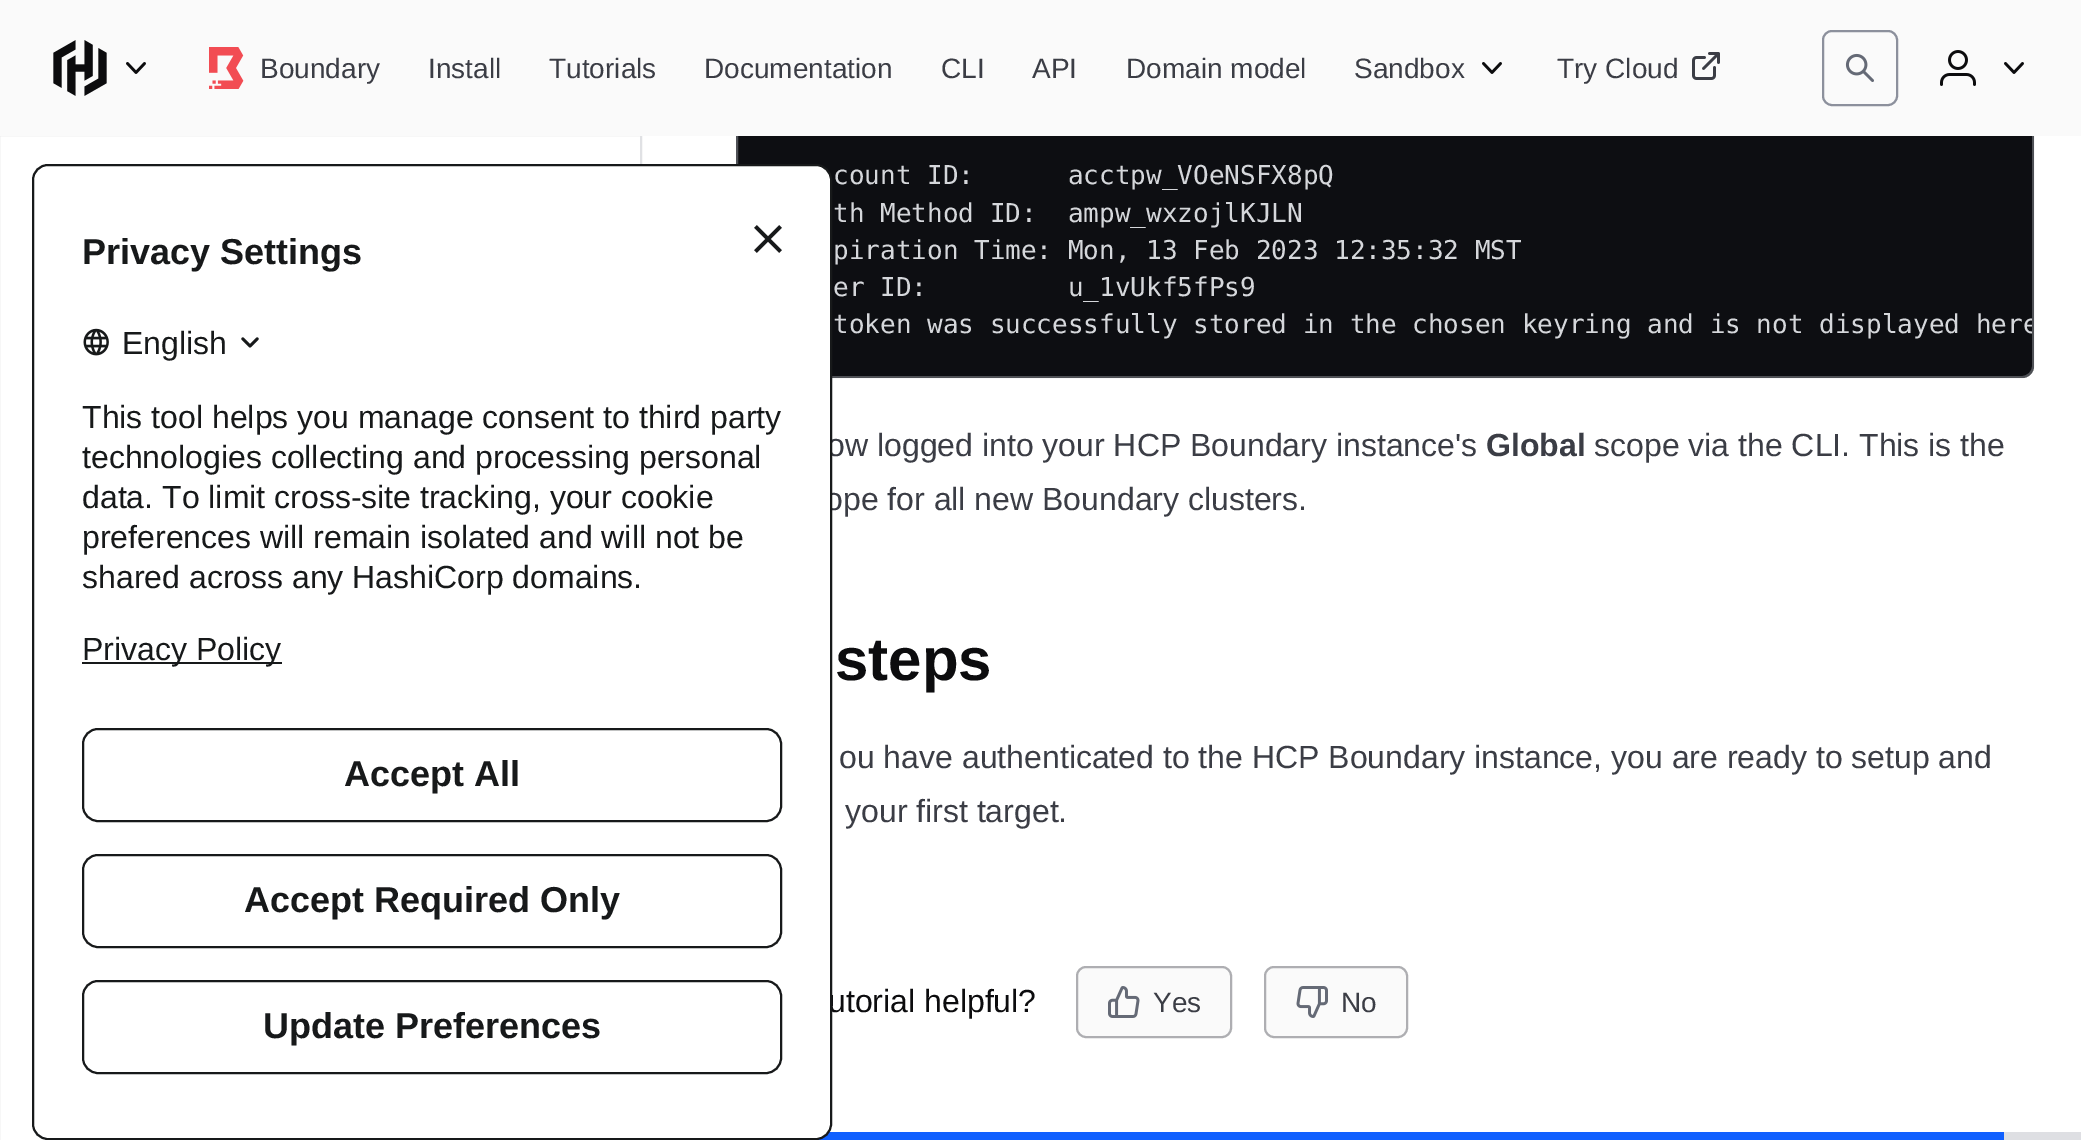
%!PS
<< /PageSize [2081 1140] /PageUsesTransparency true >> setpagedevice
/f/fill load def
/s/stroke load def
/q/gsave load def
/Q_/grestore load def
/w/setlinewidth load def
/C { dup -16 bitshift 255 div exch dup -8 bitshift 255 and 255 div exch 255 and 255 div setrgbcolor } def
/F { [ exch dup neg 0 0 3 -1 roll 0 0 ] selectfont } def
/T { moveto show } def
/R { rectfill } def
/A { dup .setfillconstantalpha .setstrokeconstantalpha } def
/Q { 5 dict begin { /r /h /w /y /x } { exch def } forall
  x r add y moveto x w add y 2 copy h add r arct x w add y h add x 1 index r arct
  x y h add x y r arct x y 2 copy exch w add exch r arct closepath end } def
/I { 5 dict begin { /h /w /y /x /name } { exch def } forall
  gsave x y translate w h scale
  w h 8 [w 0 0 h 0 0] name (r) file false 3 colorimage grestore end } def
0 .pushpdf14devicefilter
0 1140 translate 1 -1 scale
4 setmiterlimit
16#FFFFFF C
0 0 2081 1140 R
0.2 A
16#656A76 C
2 w
-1 135 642 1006 rectstroke
1 A
16#0D0E12 C
736 -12 1298 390 12 Q f
0.4 A
16#B2B6BD C
737 -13 1296 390 11 Q s
1 A
16#FAFAFA C
0 0 2081 136 R
(1.rgb) 53 40 54 56 I
(2.rgb) 126 62 20 12 I
(3.rgb) 209 47 35 42 I
/LiberationSans-Regular 28 F
16#3B3D45 C
(Boundary) 260 78 T
(Install) 428 78 T
(Tutorials) 549 78 T
(Documentation) 704 78 T
(CLI) 941 78 T
(API) 1032 78 T
(Domain model) 1126 78 T
(Sandbox) 1354 78 T
(2.rgb) 1482 62 20 12 I
(Try Cloud) 1557 78 T
(4.rgb) 1692 52 28 28 I
16#8C909C C
1823 31 74 74 9 Q s
(5.rgb) 1845 53 29 29 I
(6.rgb) 1940 50 36 36 I
(2.rgb) 2004 62 20 12 I
/DejaVuSansMono-Regular 26 F
16#D5D7DB C
(count ID:      acctpw_VOeNSFX8pQ) 833 184 T
(th Method ID:  ampw_wxzojlKJLN) 833 222 T
(piration Time: Mon, 13 Feb 2023 12:35:32 MST) 833 259 T
(er ID:         u_1vUkf5fPs9) 833 296 T
q
738 -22 1294 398 12 Q clip newpath
(token was successfully stored in the chosen keyring and is not displayed here) 833 333 T
Q_
/LiberationSans-Regular 32 F
16#3B3D45 C
(ow logged into your HCP Boundary instance's) 827 456 T
/LiberationSans-Bold 32 F
(Global) 1486 456 T
/LiberationSans-Regular 32 F
(scope via the CLI. This is the) 1594 456 T
(ope for all new Boundary clusters.) 825 510 T
/LiberationSans-Bold 60 F
16#0C0C0E C
(steps) 835 680 T
/LiberationSans-Regular 32 F
16#3B3D45 C
(ou have authenticated to the HCP Boundary instance, you are ready to setup and) 839 768 T
(your first target.) 845 822 T
16#0C0C0E C
(utorial helpful?) 828 1012 T
16#FAFAFA C
1076 966 156 72 10 Q f
0.4 A
16#3B3D45 C
1077 967 154 70 9 Q s
1 A
(7.rgb) 1108 986 32 32 I
/LiberationSans-Regular 28 F
(Yes) 1153 1012 T
16#FAFAFA C
1264 966 144 72 10 Q f
0.4 A
16#3B3D45 C
1265 967 142 70 9 Q s
1 A
(8.rgb) 1296 986 32 32 I
(No) 1341 1012 T
16#DEDFE3 C
2004 1132 77 8 R
16#1060FF C
816 1132 1188 8 R
16#FFFFFF C
33 165 798 974 15 Q q f Q_
16#17191A C
s
/LiberationSans-Bold 36 F
(Privacy Settings) 82 264 T
(9.rgb) 754 225 28 28 I
(10.rgb) 83 328 26 28 I
/LiberationSans-Regular 32 F
(English) 122 354 T
(11.rgb) 241 337 18 11 I
(This tool helps you manage consent to third party) 82 428 T
(technologies collecting and processing personal) 82 468 T
(data. To limit cross-site tracking, your cookie) 82 508 T
(preferences will remain isolated and will not be) 82 548 T
(shared across any HashiCorp domains.) 82 588 T
82 662 200 2 R
(Privacy Policy) 82 660 T
83 729 698 92 15 Q s
/LiberationSans-Bold 36 F
(Accept All) 344 786 T
83 855 698 92 15 Q s
(Accept Required Only) 244 912 T
83 981 698 92 15 Q s
(Update Preferences) 263 1038 T
.poppdf14devicefilter showpage
